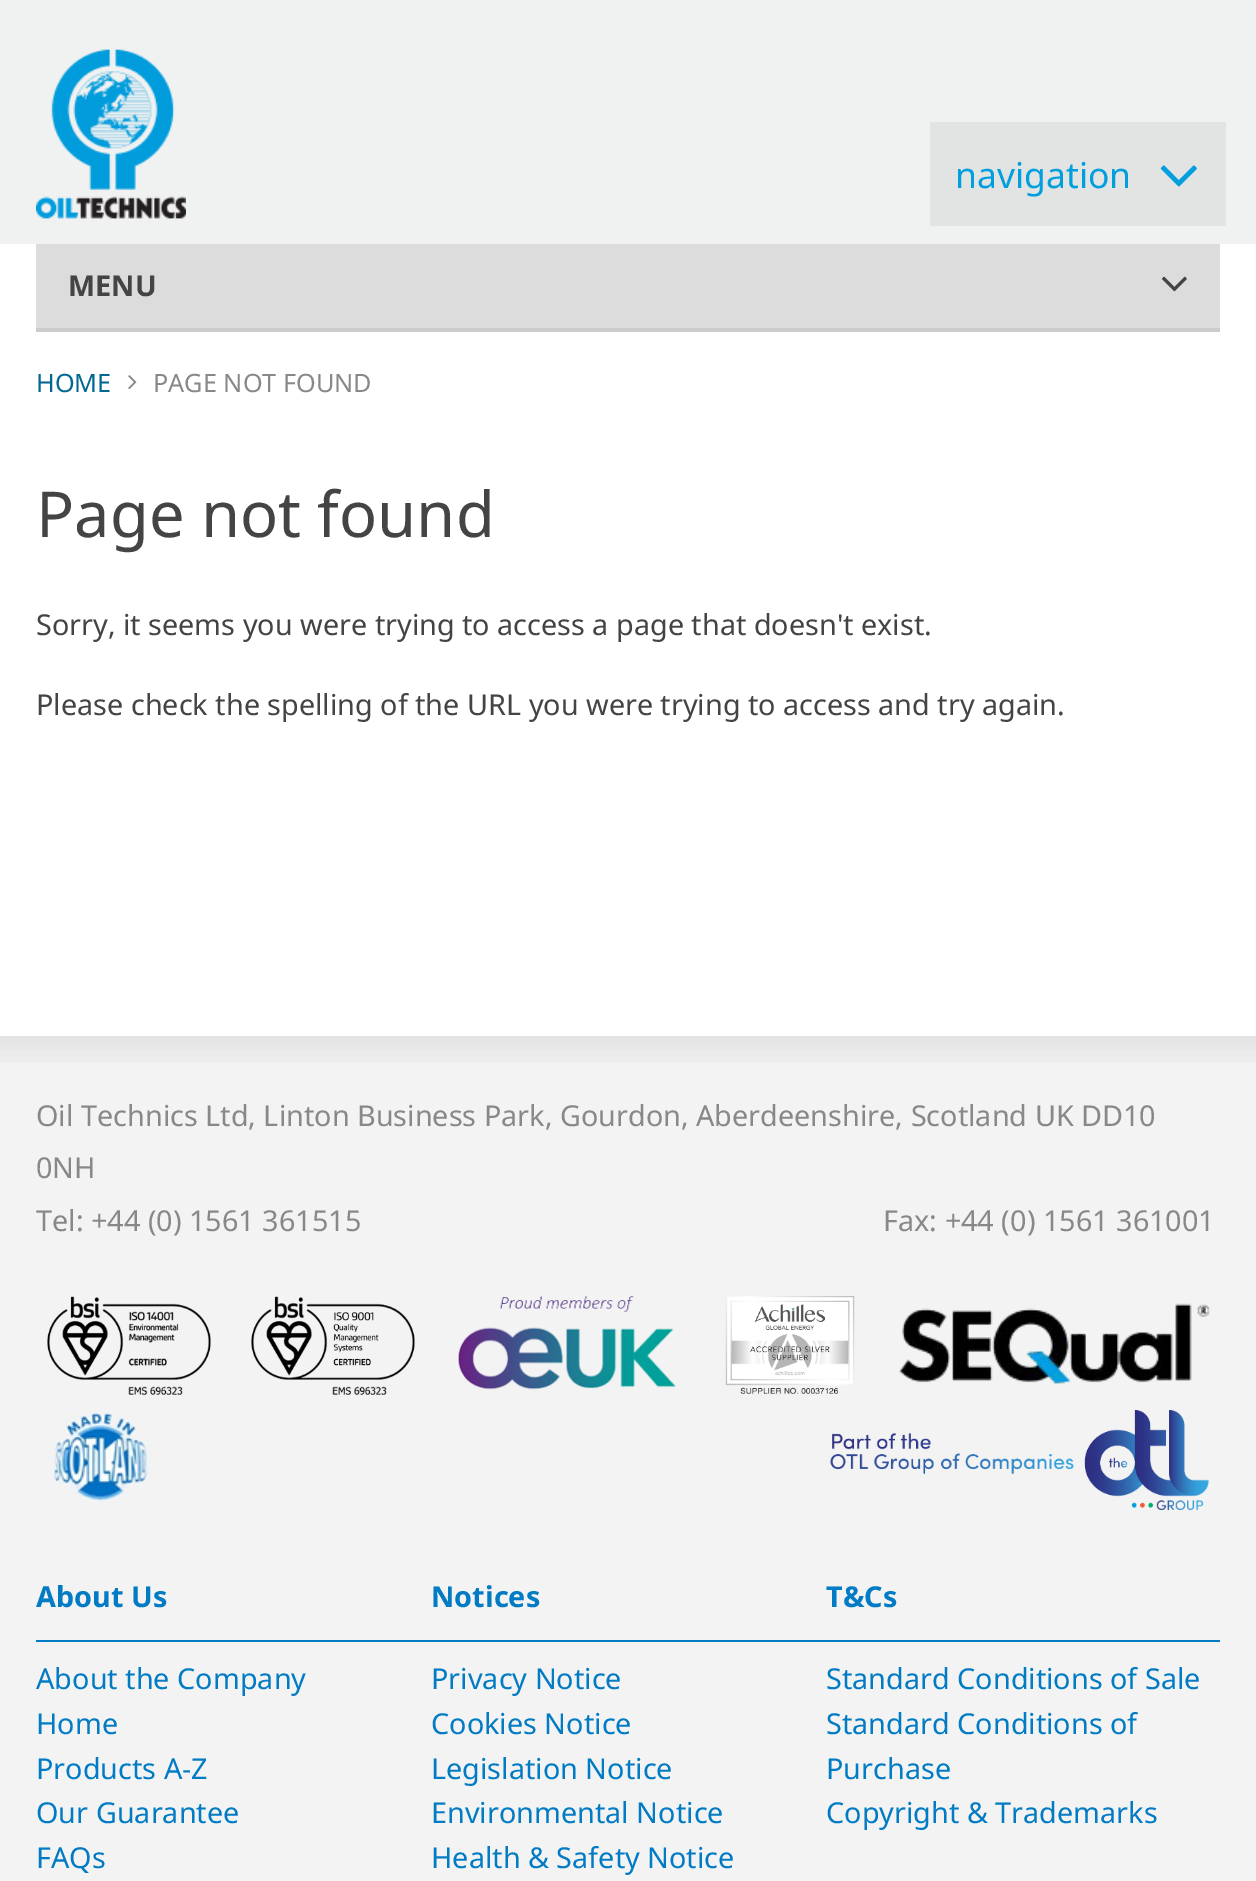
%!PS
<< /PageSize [1256 1881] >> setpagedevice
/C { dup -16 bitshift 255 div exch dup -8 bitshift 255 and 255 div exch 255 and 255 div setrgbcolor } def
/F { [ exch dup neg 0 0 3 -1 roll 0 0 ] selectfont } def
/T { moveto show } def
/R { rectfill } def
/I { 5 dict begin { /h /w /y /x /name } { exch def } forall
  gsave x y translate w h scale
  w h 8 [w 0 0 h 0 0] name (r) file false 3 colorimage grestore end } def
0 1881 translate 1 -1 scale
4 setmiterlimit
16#FFFFFF C
0 0 1256 1881 R
16#F0F1F1 C
0 0 1256 244 R
(1.rgb) 36 49 150 170 I
16#E2E4E4 C
930 122 296 104 R
/NotoSans-Regular 35.5 F
16#019FDE C
(navigation) 955 188 T
(2.rgb) 1160 165 37 22 I
16#DCDCDC C
36 244 1184 84 R
/NotoSans-Bold 28.8 F
16#444444 C
(MENU) 68 296 T
(3.rgb) 1162 276 25 16 I
16#CCCCCC C
36 328 1184 4 R
/NotoSans-Regular 25.25 F
16#016892 C
(HOME) 36 392 T
(4.rgb) 128 375 9 14 I
16#888888 C
(PAGE NOT FOUND) 153 392 T
/NotoSans-Regular 63.25 F
16#444444 C
(Page not found) 36 537 T
/NotoSans-Regular 28.8 F
(Sorry, it seems you were trying to access a page that doesn't exist.) 36 635 T
(Please check the spelling of the URL you were trying to access and try again.) 36 715 T
16#F3F3F3 C
0 1063 1256 818 R
(5.rgb) 0 1036 1256 27 I
16#888888 C
(Oil Technics Ltd, Linton Business Park, Gourdon, Aberdeenshire, Scotland UK DD10) 36 1126 T
(0NH) 36 1178 T
(Tel: +44 \(0\) 1561 361515) 36 1231 T
(Fax: +44 \(0\) 1561 361001) 883 1231 T
(6.rgb) 47 1296 164 99 I
(7.rgb) 251 1296 164 99 I
(8.rgb) 458 1296 218 94 I
(9.rgb) 725 1296 130 98 I
(10.rgb) 899 1303 312 82 I
(11.rgb) 44 1410 109 92 I
(12.rgb) 830 1410 379 100 I
16#017BC4 C
36 1640 1184 2 R
/NotoSans-Bold 28.8 F
(About Us) 36 1607 T
/NotoSans-Regular 28.8 F
(About the Company) 36 1689 T
(Home) 36 1734 T
(Products A-Z) 36 1779 T
(Our Guarantee) 36 1823 T
(FAQs) 36 1868 T
/NotoSans-Bold 28.8 F
(Notices) 431 1607 T
/NotoSans-Regular 28.8 F
(Privacy Notice) 431 1689 T
(Cookies Notice) 431 1734 T
(Legislation Notice) 431 1779 T
(Environmental Notice) 431 1823 T
(Health & Safety Notice) 431 1868 T
/NotoSans-Bold 28.8 F
(T&Cs) 826 1607 T
/NotoSans-Regular 28.8 F
(Standard Conditions of Sale) 826 1689 T
(Standard Conditions of) 826 1734 T
(Purchase) 826 1779 T
(Copyright & Trademarks) 826 1823 T
showpage
